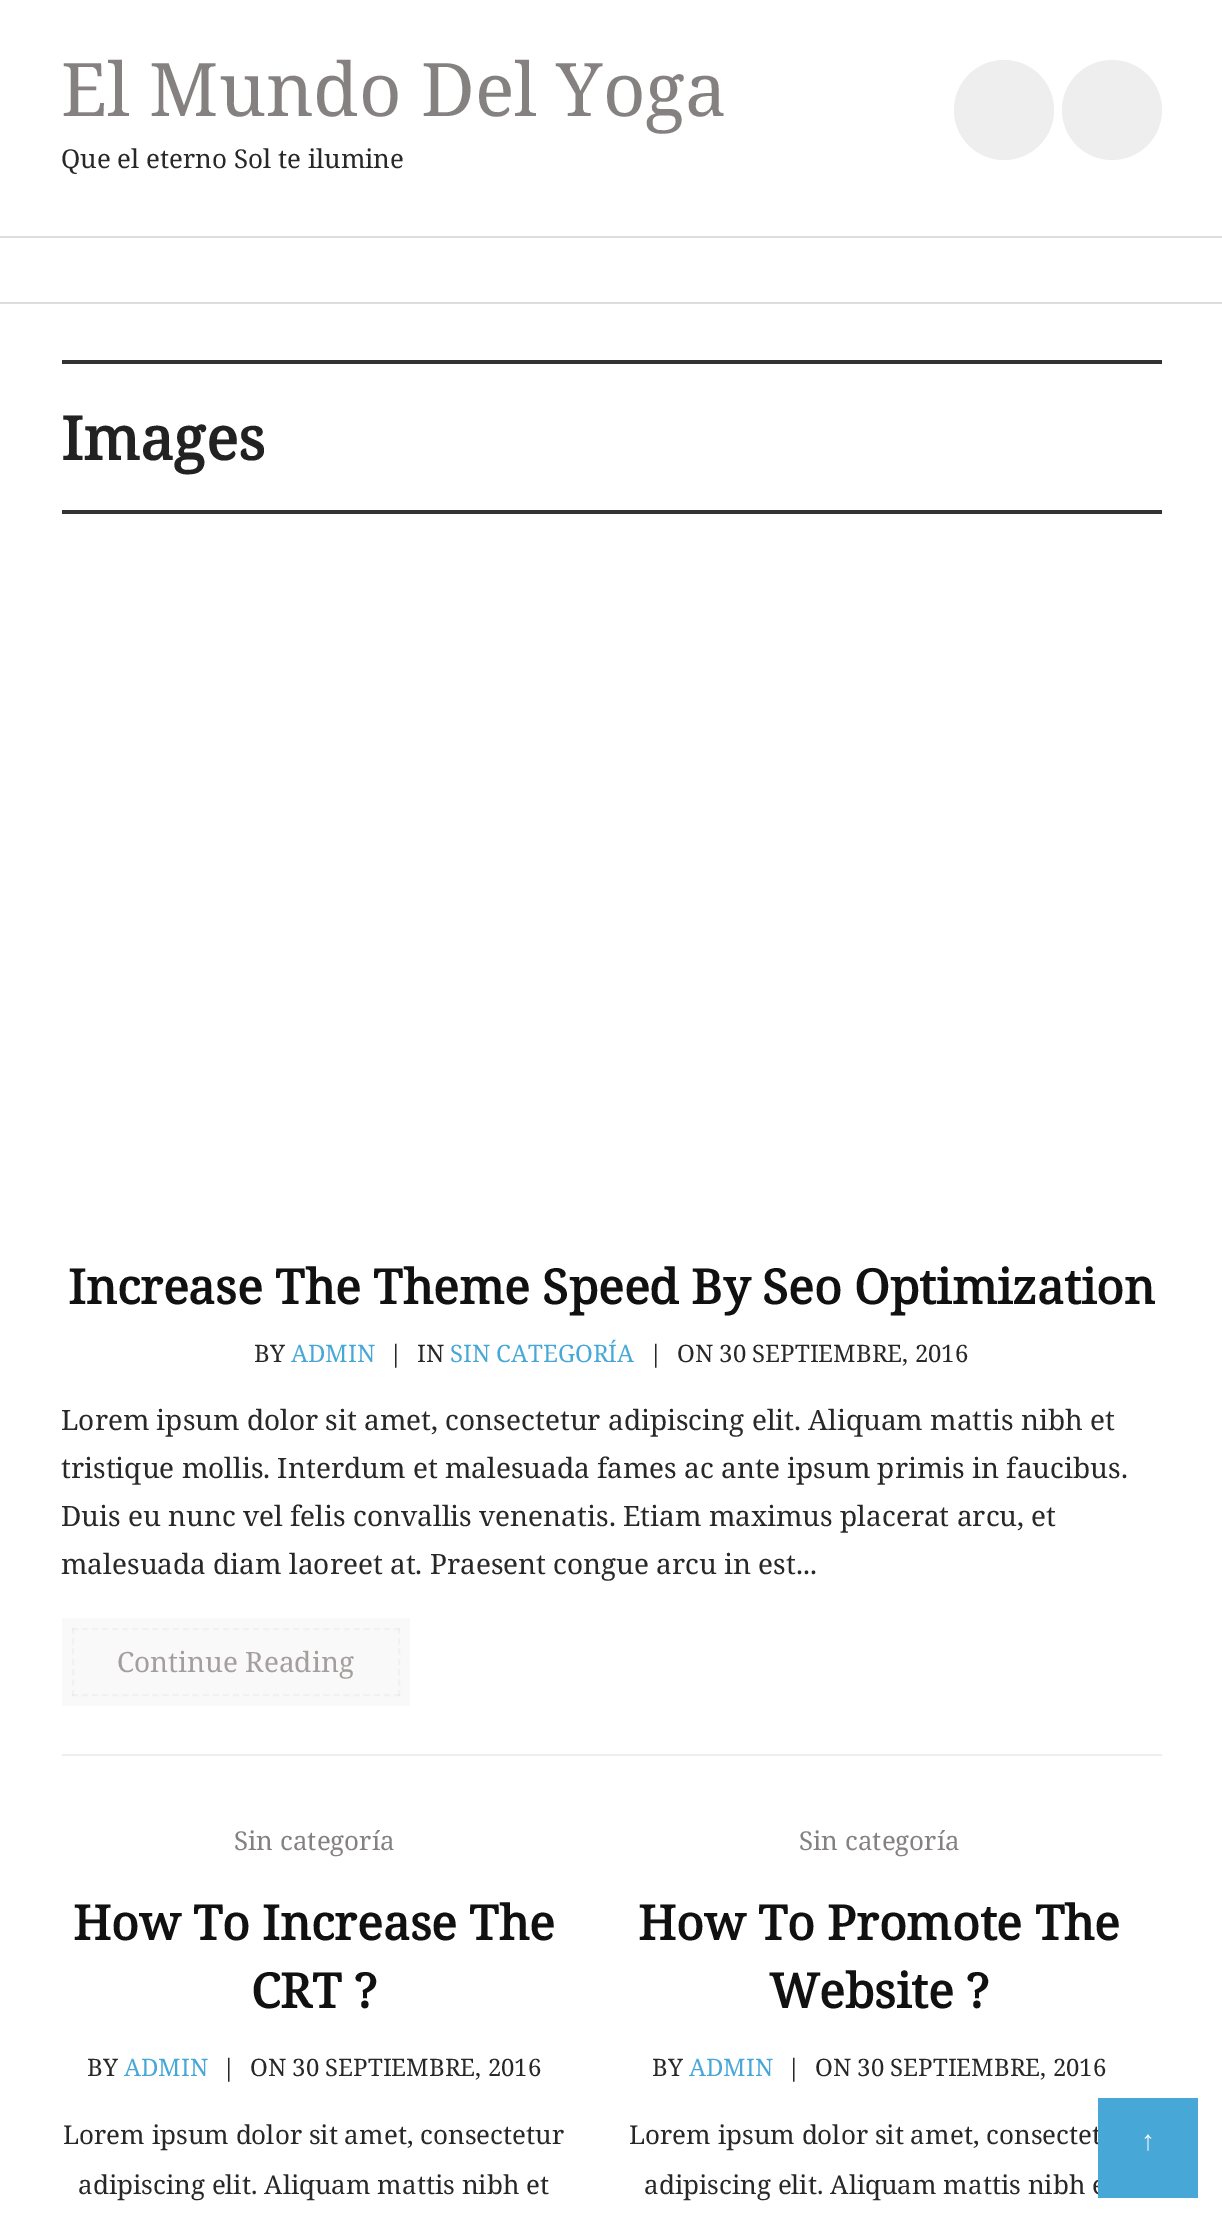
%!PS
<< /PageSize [1222 2219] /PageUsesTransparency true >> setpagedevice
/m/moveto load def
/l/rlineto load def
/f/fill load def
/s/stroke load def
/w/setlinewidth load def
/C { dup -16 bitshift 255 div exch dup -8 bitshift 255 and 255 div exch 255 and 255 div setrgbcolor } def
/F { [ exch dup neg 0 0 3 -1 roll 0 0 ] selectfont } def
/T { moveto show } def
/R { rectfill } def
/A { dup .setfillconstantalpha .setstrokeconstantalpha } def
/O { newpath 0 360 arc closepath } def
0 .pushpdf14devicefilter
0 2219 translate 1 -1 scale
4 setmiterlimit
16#FFFFFF C
0 0 1222 2219 R
/NotoSerif-Regular 74 F
16#858181 C
(El Mundo Del Yoga) 61 116 T
/NotoSerif-Regular 26 F
16#282828 C
(Que el eterno Sol te ilumine) 61 168 T
16#EEEEEE C
1004 110 50 O f
1112 110 50 O f
16#DDDDDD C
0 236 1222 2 R
0 302 1222 2 R
16#333333 C
62 360 1100 4 R
62 510 1100 4 R
/NotoSerif-Bold 60 F
16#222222 C
(Images) 61 460 T
16#EEEEEE C
62 1754 1100 2 R
/NotoSerif-Bold 48 F
16#111111 C
(Increase The Theme Speed By Seo Optimization) 68 1304 T
/NotoSerif-Regular 24 F
16#282828 C
(BY) 254 1362 T
16#47A7D7 C
(ADMIN) 291 1362 T
16#282828 C
(|) 389 1362 T
(IN) 417 1362 T
16#47A7D7 C
(SIN CATEGORÍA) 450 1362 T
16#282828 C
(|) 649 1362 T
(ON 30 SEPTIEMBRE, 2016) 677 1362 T
/NotoSerif-Regular 28 F
(Lorem ipsum dolor sit amet, consectetur adipiscing elit. Aliquam mattis nibh et) 61 1430 T
(tristique mollis. Interdum et malesuada fames ac ante ipsum primis in faucibus.) 61 1478 T
(Duis eu nunc vel felis convallis venenatis. Etiam maximus placerat arcu, et) 61 1526 T
(malesuada diam laoreet at. Praesent congue arcu in est...) 61 1574 T
16#F9F9F9 C
62 1618 348 88 R
16#F2F1F1 C
2 w
[6 4.06] 0 setdash
72 1629 m 328 0 l s
0.3 A
16#E0DDDD C
[6 4.34] 0 setdash
399 1628 m 0 68 l s
[6 4.06] 0 setdash
72 1695 m 328 0 l s
[6 4.34] 0 setdash
73 1628 m 0 68 l s
1 A
16#A59E9E C
(Continue Reading) 117 1672 T
/NotoSerif-Regular 26 F
16#858181 C
(Sin categoría) 234 1850 T
/NotoSerif-Bold 48 F
16#111111 C
(How To Increase The) 73 1940 T
(CRT ?) 251 2008 T
/NotoSerif-Regular 24 F
16#282828 C
(BY) 87 2076 T
16#47A7D7 C
(ADMIN) 124 2076 T
16#282828 C
(|) 222 2076 T
(ON 30 SEPTIEMBRE, 2016) 250 2076 T
/NotoSerif-Regular 26 F
(Lorem ipsum dolor sit amet, consectetur) 63 2144 T
(adipiscing elit. Aliquam mattis nibh et) 78 2194 T
16#858181 C
(Sin categoría) 799 1850 T
/NotoSerif-Bold 48 F
16#111111 C
(How To Promote The) 638 1940 T
(Website ?) 769 2008 T
/NotoSerif-Regular 24 F
16#282828 C
(BY) 652 2076 T
16#47A7D7 C
(ADMIN) 689 2076 T
16#282828 C
(|) 787 2076 T
(ON 30 SEPTIEMBRE, 2016) 815 2076 T
/NotoSerif-Regular 26 F
(Lorem ipsum dolor sit amet, consectet) 629 2144 T
(adipiscing elit. Aliquam mattis nibh e) 644 2194 T
16#47A7D7 C
1098 2098 100 100 R
/LiberationSerif-Regular 28 F
16#FFFFFF C
(↑) 1141 2150 T
.poppdf14devicefilter showpage
